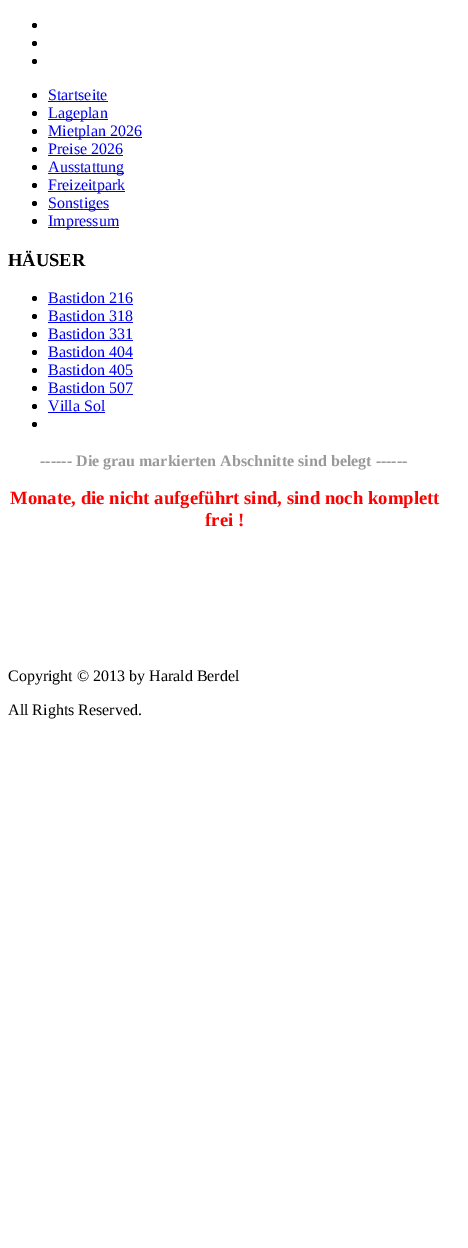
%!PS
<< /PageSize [468 1248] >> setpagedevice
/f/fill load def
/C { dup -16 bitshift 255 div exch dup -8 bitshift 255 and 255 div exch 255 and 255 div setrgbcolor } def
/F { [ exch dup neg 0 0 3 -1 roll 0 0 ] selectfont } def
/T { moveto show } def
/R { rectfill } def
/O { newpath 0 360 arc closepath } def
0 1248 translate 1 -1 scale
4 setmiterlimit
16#FFFFFF C
0 0 468 1248 R
16#000000 C
34.5 25.5 2.5 O f
34.5 43.5 2.5 O f
34.5 61.5 2.5 O f
34.5 95.5 2.5 O f
/LiberationSerif-Regular 16 F
16#0000EE C
(Startseite) 48 100 T
48 101 60 1 R
16#000000 C
34.5 113.5 2.5 O f
16#0000EE C
48 119 60 1 R
(Lageplan) 48 118 T
16#000000 C
34.5 131.5 2.5 O f
16#0000EE C
48 137 94 1 R
(Mietplan 2026) 48 136 T
16#000000 C
34.5 149.5 2.5 O f
16#0000EE C
(Preise 2026) 48 154 T
48 155 75 1 R
16#000000 C
34.5 167.5 2.5 O f
16#0000EE C
48 173 76 1 R
(Ausstattung) 48 172 T
16#000000 C
34.5 185.5 2.5 O f
16#0000EE C
48 191 77 1 R
(Freizeitpark) 48 190 T
16#000000 C
34.5 203.5 2.5 O f
16#0000EE C
48 209 61 1 R
(Sonstiges) 48 208 T
16#000000 C
34.5 221.5 2.5 O f
16#0000EE C
48 227 71 1 R
(Impressum) 48 226 T
/LiberationSerif-Bold 18.5 F
16#000000 C
(HÄUSER) 8 266 T
34.5 298.5 2.5 O f
/LiberationSerif-Regular 16 F
16#0000EE C
(Bastidon 216) 48 303 T
48 304 85 1 R
16#000000 C
34.5 316.5 2.5 O f
16#0000EE C
(Bastidon 318) 48 321 T
48 322 85 1 R
16#000000 C
34.5 334.5 2.5 O f
16#0000EE C
(Bastidon 331) 48 339 T
48 340 85 1 R
16#000000 C
34.5 352.5 2.5 O f
16#0000EE C
(Bastidon 404) 48 357 T
48 358 85 1 R
16#000000 C
34.5 370.5 2.5 O f
16#0000EE C
(Bastidon 405) 48 375 T
48 376 85 1 R
16#000000 C
34.5 388.5 2.5 O f
16#0000EE C
(Bastidon 507) 48 393 T
48 394 85 1 R
16#000000 C
34.5 406.5 2.5 O f
16#0000EE C
(Villa Sol) 48 411 T
48 412 57 1 R
16#000000 C
34.5 424.5 2.5 O f
/LiberationSerif-Bold 16 F
16#999999 C
(------ Die grau markierten Abschnitte sind belegt ------) 40 466 T
/LiberationSerif-Bold 18.7 F
16#FF0000 C
(Monate, die nicht aufgeführt sind, sind noch komplett) 10 504 T
(frei !) 205 526 T
/LiberationSerif-Regular 16 F
16#000000 C
(Copyright © 2013 by Harald Berdel) 8 681 T
(All Rights Reserved.) 8 715 T
showpage
